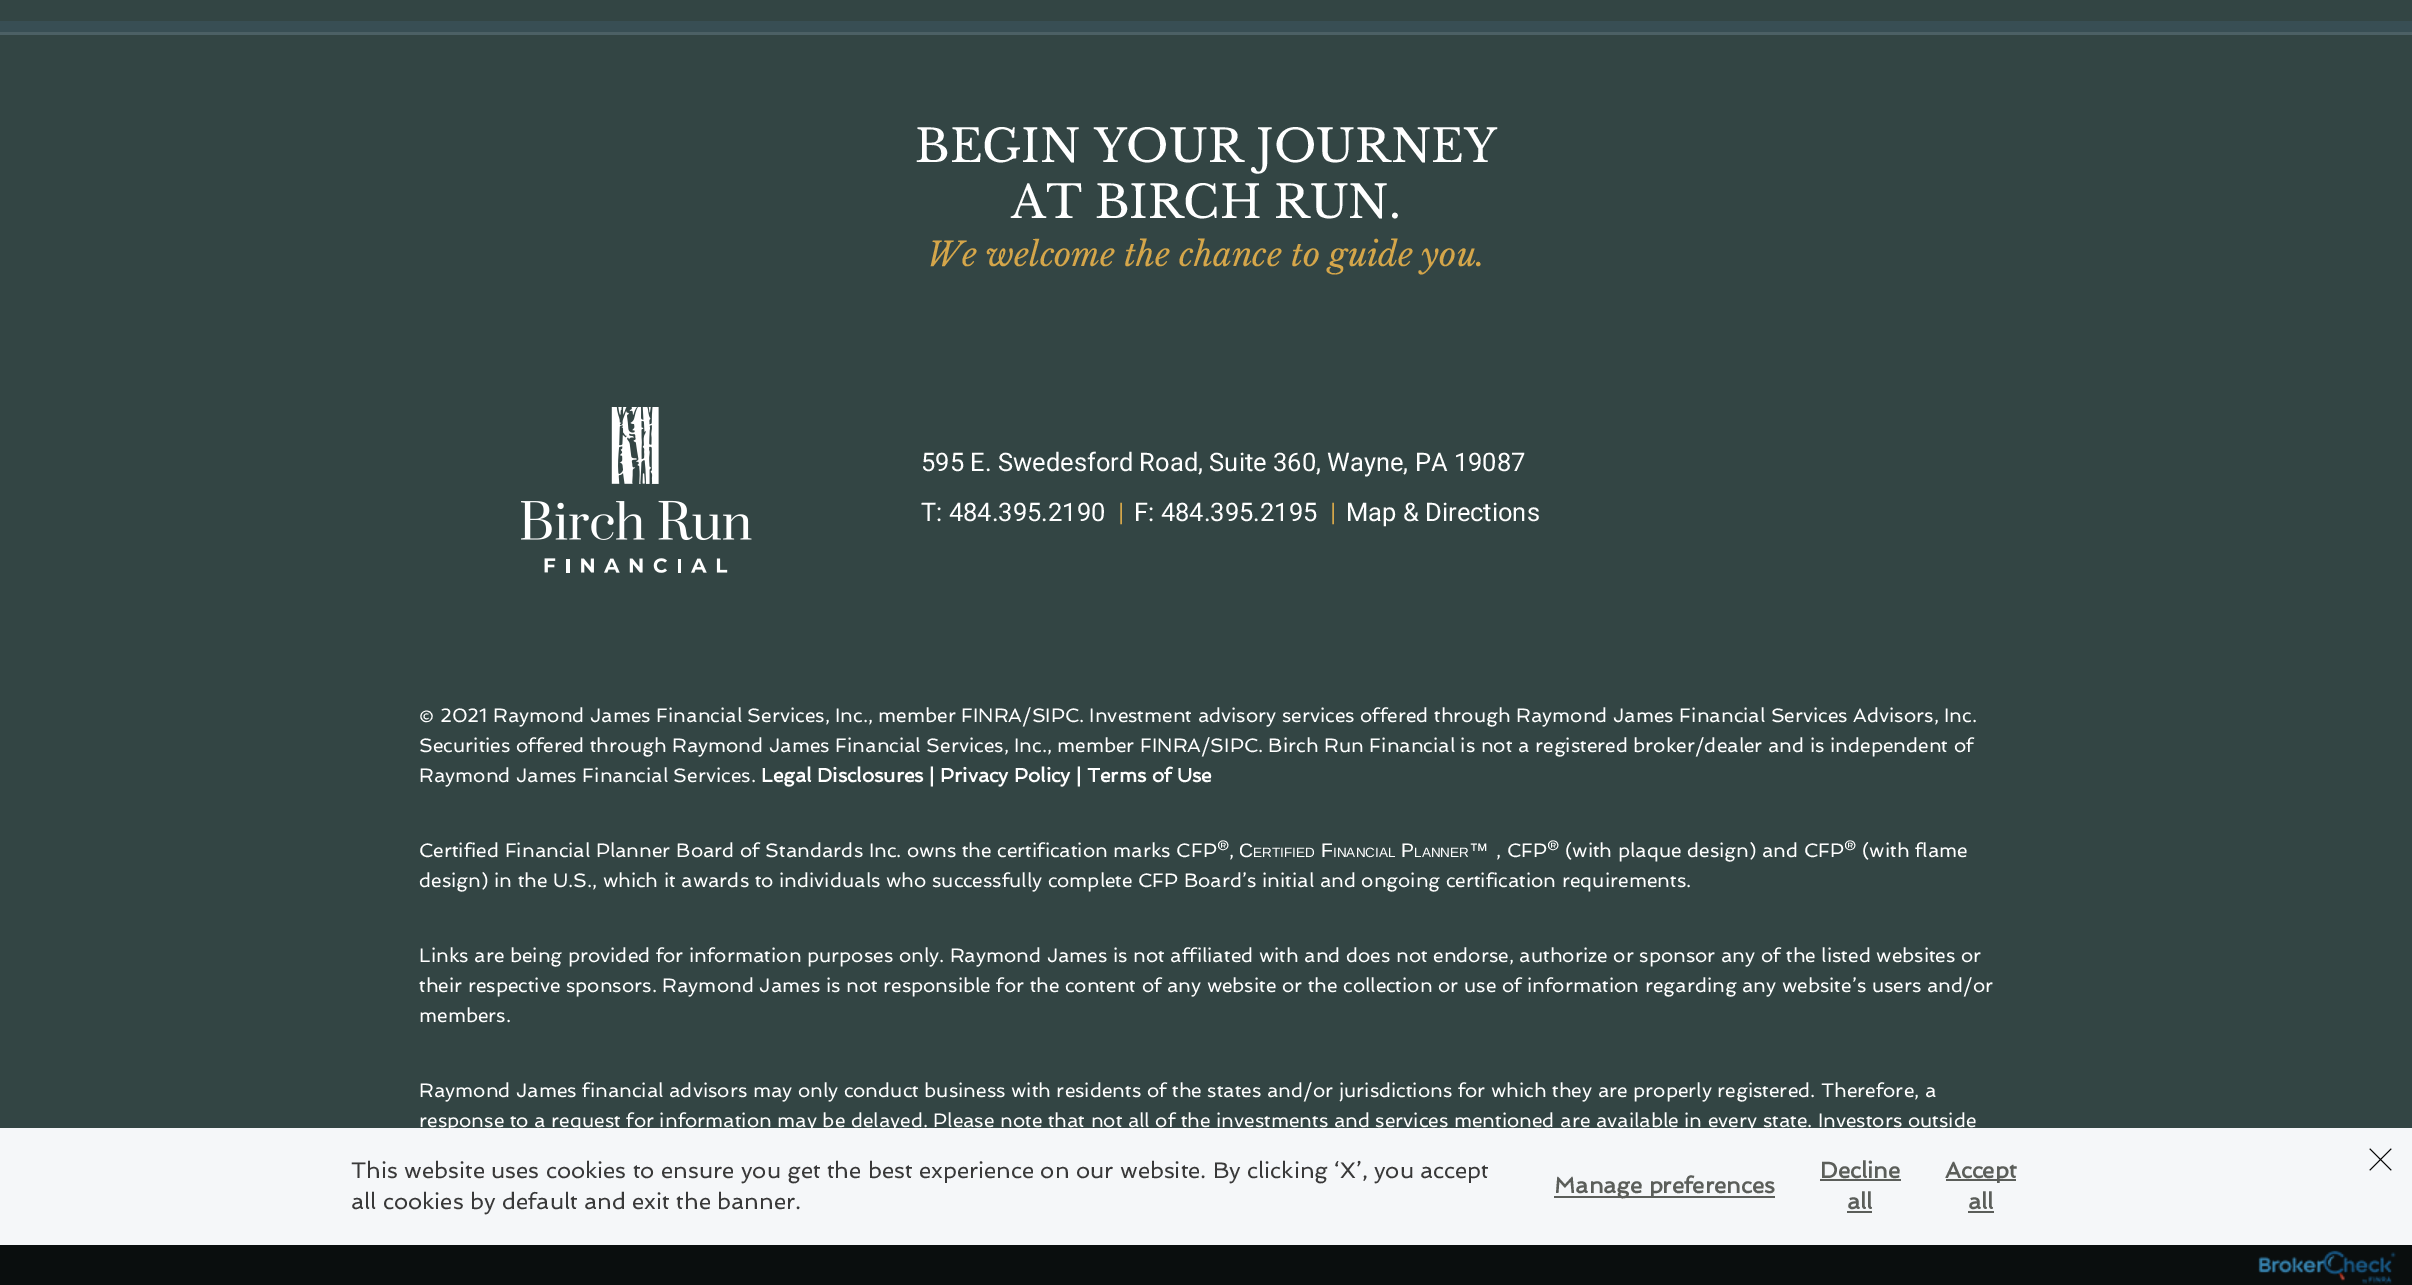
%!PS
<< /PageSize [2412 1285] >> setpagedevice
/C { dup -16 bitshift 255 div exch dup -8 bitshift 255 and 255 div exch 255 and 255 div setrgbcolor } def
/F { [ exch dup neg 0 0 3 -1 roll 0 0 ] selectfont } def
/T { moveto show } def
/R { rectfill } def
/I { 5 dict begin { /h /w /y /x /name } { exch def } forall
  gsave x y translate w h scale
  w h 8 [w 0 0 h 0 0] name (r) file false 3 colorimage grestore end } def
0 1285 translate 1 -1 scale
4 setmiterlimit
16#334544 C
0 0 2412 1285 R
16#384E54 C
0 21 2412 11 R
16#4C6065 C
0 32 2412 3 R
/LibreBaskerville-Regular 45 F
16#FFFFFF C
(BEGIN YOUR JOURNEY) 915 162 T
(AT BIRCH RUN.) 1011 218 T
/LibreBaskerville-Italic 33 F
16#D5A64A C
(We welcome the chance to guide you.) 927 266 T
(1.rgb) 521 407 231 166 I
/Roboto-Regular 25.5 F
16#FFFFFF C
(595 E. Swedesford Road, Suite 360, Wayne, PA 19087) 921 471 T
(T: 484.395.2190) 921 521 T
16#D5A64A C
(|) 1118 521 T
16#FFFFFF C
(F: 484.395.2195) 1134 521 T
16#D5A64A C
(|) 1330 521 T
16#FFFFFF C
(Map & Directions) 1346 521 T
/Spinnaker-Regular 19.5 F
(© 2021 Raymond James Financial Services, Inc., member FINRA/SIPC. Investment advisory services offered through Raymond James Financial Services Advisors, Inc.) 419 722 T
(Securities offered through Raymond James Financial Services, Inc., member FINRA/SIPC. Birch Run Financial is not a registered broker/dealer and is independent of) 419 752 T
(Raymond James Financial Services.) 419 782 T
/Spinnaker-Bold 19.5 F
(Legal Disclosures | Privacy Policy | Terms of Use) 761 782 T
/Spinnaker-Regular 19.5 F
(Certified Financial Planner Board of Standards Inc. owns the certification marks CFP®,) 419 857 T
/LiberationSans-Regular 19.5 F
(C) 1239 857 T
/LiberationSans-Regular 13.5 F
(ERTIFIED) 1253 857 T
/LiberationSans-Regular 19.5 F
(F) 1321 857 T
/LiberationSans-Regular 13.5 F
(INANCIAL) 1333 857 T
/LiberationSans-Regular 19.5 F
(P) 1401 857 T
/LiberationSans-Regular 13.5 F
(LANNER) 1414 857 T
/LiberationSans-Regular 19.5 F
(™) 1469 857 T
/Spinnaker-Regular 19.5 F
(, CFP® \(with plaque design\) and CFP® \(with flame) 1496 857 T
(design\) in the U.S., which it awards to individuals who successfully complete CFP Board’s initial and ongoing certification requirements.) 419 887 T
(Links are being provided for information purposes only. Raymond James is not affiliated with and does not endorse, authorize or sponsor any of the listed websites or) 419 962 T
(their respective sponsors. Raymond James is not responsible for the content of any website or the collection or use of information regarding any website’s users and/or) 419 992 T
(members.) 419 1022 T
(Raymond James financial advisors may only conduct business with residents of the states and/or jurisdictions for which they are properly registered. Therefore, a) 419 1097 T
(response to a request for information may be delayed. Please note that not all of the investments and services mentioned are available in every state. Investors outside) 419 1127 T
16#0A0E0E C
0 1245 2412 40 R
(2.rgb) 2258 1250 138 34 I
16#F5F7F9 C
0 1128 2412 117 R
/Spinnaker-Regular 22.5 F
16#393939 C
(This website uses cookies to ensure you get the best experience on our website. By clicking ‘X’, you accept) 351 1178 T
(all cookies by default and exit the banner.) 351 1209 T
16#5B5E5A C
1554 1196 221 2 R
/Spinnaker-Bold 22.5 F
(Manage preferences) 1554 1193 T
(Decline) 1820 1178 T
1820 1179 81 2 R
(all) 1847 1209 T
1847 1211 25 2 R
1946 1179 70 2 R
(Accept) 1945 1178 T
(all) 1968 1209 T
1968 1211 26 2 R
(3.rgb) 2369 1148 23 23 I
showpage
